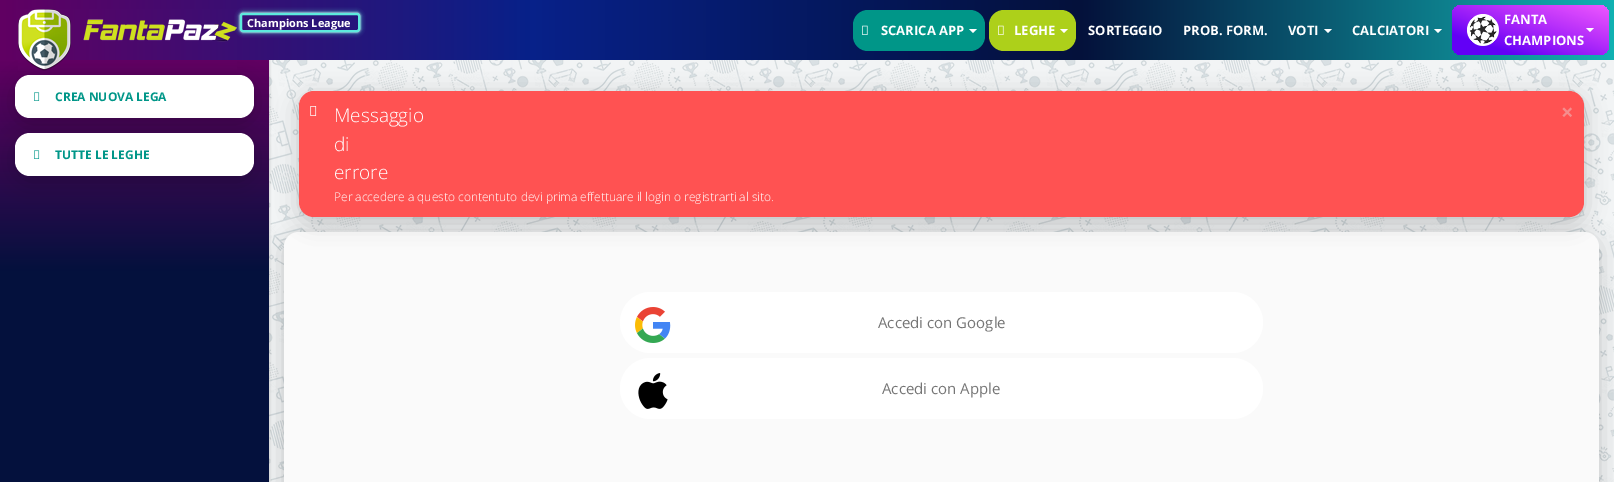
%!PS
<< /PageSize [1614 482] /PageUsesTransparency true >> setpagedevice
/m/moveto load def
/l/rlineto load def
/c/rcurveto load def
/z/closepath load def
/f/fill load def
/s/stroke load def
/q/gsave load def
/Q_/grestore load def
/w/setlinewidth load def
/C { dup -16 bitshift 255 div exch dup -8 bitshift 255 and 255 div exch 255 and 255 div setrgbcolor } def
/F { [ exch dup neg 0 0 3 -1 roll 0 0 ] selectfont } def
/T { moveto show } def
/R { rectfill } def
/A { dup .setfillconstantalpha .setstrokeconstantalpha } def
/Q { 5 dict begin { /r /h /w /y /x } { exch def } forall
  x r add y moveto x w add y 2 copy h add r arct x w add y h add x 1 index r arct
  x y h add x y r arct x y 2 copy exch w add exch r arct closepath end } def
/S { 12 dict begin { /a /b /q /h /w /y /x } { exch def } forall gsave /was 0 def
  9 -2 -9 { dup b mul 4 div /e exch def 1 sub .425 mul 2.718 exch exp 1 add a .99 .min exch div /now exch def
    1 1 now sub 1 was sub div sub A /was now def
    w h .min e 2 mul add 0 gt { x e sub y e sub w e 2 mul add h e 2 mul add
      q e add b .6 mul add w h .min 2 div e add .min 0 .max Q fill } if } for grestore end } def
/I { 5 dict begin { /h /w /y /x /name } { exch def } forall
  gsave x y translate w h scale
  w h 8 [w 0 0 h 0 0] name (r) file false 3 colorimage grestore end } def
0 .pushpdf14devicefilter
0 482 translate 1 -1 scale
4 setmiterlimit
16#ECEFF1 C
0 0 1614 482 R
(1.rgb) 269 60 1345 422 I
16#000000 C
1 60 269 422 0 1 .12 S
284 237 1315 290 15 11 .2 S
16#FAFAFA C
299 232 m 1285 0 l 8.5 0 15 6.5 15 15 c 0 235 l -1315 0 l 0 -235 l 0 -8.5 6.5 -15 15 -15 c z f
16#000000 C
299 96 1285 126 15 11 .2 S
q 0 60 m 269 0 l 0 422 l -269 0 l z clip newpath
<< /ShadingType 2 /ColorSpace /DeviceRGB /Coords [135 482 135 60] /Extend [true true] /Function << /FunctionType 3 /Domain [0 1] /Functions [<< /FunctionType 2 /Domain [0 1] /C0 [.016 .067 .239] /C1 [.016 .067 .239] /N 1 >> << /FunctionType 2 /Domain [0 1] /C0 [.016 .067 .239] /C1 [.38 0 .384] /N 1 >>] /Bounds [.5] /Encode [0 1 0 1] >> >> shfill Q_
15 80 239 43 15 11 .2 S
q 0 0 m 1614 0 l 0 60 l -1614 0 l z clip newpath
<< /ShadingType 2 /ColorSpace /DeviceRGB /Coords [1614 30 0 30] /Extend [true true] /Function << /FunctionType 3 /Domain [0 1] /Functions [<< /FunctionType 2 /Domain [0 1] /C0 [.071 .698 .698] /C1 [.016 .067 .231] /N 1 >> << /FunctionType 2 /Domain [0 1] /C0 [.016 .067 .231] /C1 [.027 .129 .537] /N 1 >> << /FunctionType 2 /Domain [0 1] /C0 [.027 .129 .537] /C1 [.38 0 .384] /N 1 >>] /Bounds [.33 .67] /Encode [0 1 0 1 0 1] >> >> shfill Q_
(2.rgb) 18 9 219 62 I
q
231 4 m 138 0 l 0 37 l -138 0 l z 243 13 m 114 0 l 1.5 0 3 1.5 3 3 c 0 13 l 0 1.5 -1.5 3 -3 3 c -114 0 l -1.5 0 -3 -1.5 -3 -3 c 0 -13 l 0 -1.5 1.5 -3 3 -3 c z eoclip newpath
16#5DEADD C
240 13 120 19 3 2.5 1 S
Q_
q
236 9 m 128 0 l 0 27 l -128 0 l z 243 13 m 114 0 l 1.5 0 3 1.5 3 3 c 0 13 l 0 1.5 -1.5 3 -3 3 c -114 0 l -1.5 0 -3 -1.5 -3 -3 c 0 -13 l 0 -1.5 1.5 -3 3 -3 c z eoclip newpath
16#FFFFFF C
240 13 120 19 3 1 1 S
Q_
16#5DEADD C
2 w
241 14 118 17 2 Q s
/OpenSans-Bold 11 F
16#FFFFFF C
(Champions League) 247 27 T
16#009688 C
853 10 132 41 15 Q f
(3.rgb) 862 25 6 10 I
/OpenSans-Bold 13 F
16#FFFFFF C
(SCARICA APP) 881 35 T
969 29 m 8 0 l -4 4 l z f
16#ADD01A C
989 10 87 41 15 Q f
(4.rgb) 998 25 6 10 I
16#FFFFFF C
(LEGHE) 1014 35 T
1060 29 m 8 0 l -4 4 l z f
(SORTEGGIO) 1088 35 T
(PROB. FORM.) 1183 35 T
(VOTI) 1288 35 T
1324 29 m 8 0 l -4 4 l z f
(CALCIATORI) 1352 35 T
1434 29 m 8 0 l -4 4 l z f
q 1452 5 157 50 10 Q clip newpath
<< /ShadingType 2 /ColorSpace /DeviceRGB /Coords [1545 -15 1516 75] /Extend [true true] /Function << /FunctionType 3 /Domain [0 1] /Functions [<< /FunctionType 2 /Domain [0 1] /C0 [.929 .345 1] /C1 [.824 .259 .988] /N 1 >> << /FunctionType 2 /Domain [0 1] /C0 [.824 .259 .988] /C1 [.706 .176 .98] /N 1 >> << /FunctionType 2 /Domain [0 1] /C0 [.706 .176 .98] /C1 [.565 .09 .973] /N 1 >> << /FunctionType 2 /Domain [0 1] /C0 [.565 .09 .973] /C1 [.384 0 .965] /N 1 >> << /FunctionType 2 /Domain [0 1] /C0 [.384 0 .965] /C1 [.384 0 .965] /N 1 >>] /Bounds [.2 .4 .6 .8] /Encode [0 1 0 1 0 1 0 1 0 1] >> >> shfill Q_
(5.rgb) 1467 14 32 32 I
(FANTA) 1504 24 T
1586 28 m 8 0 l -4 4 l z f
(CHAMPIONS) 1504 45 T
15 75 239 43 15 Q f
(6.rgb) 34 92 6 9 I
/OpenSans-Bold 12 F
16#009688 C
(CREA NUOVA LEGA) 55 101 T
16#000000 C
15 138 239 43 15 11 .2 S
16#FFFFFF C
15 133 239 43 15 Q f
(6.rgb) 34 150 6 9 I
16#009688 C
(TUTTE LE LEGHE) 55 159 T
16#FF5252 C
299 91 1285 126 15 Q f
(7.rgb) 310 106 7 10 I
/OpenSans-Light 19 F
16#FFFFFF C
(Messaggio) 334 122 T
(di) 334 151 T
(errore) 334 179 T
/OpenSans-Bold 22 F
16#F58D8D C
(×) 1561 120 T
/OpenSans-Light 12 F
16#FFFFFF C
(Per accedere a questo contentuto devi prima effettuare il login o registrarti al sito.) 334 201 T
620 292 643 61 30.5 Q f
(8.rgb) 635 307 36 36 I
/OpenSans-Regular 15 F
16#757575 C
(Accedi con Google) 878 328 T
16#FFFFFF C
620 358 643 61 30.5 Q f
(9.rgb) 638 373 30 36 I
16#757575 C
(Accedi con Apple) 882 394 T
.poppdf14devicefilter showpage
